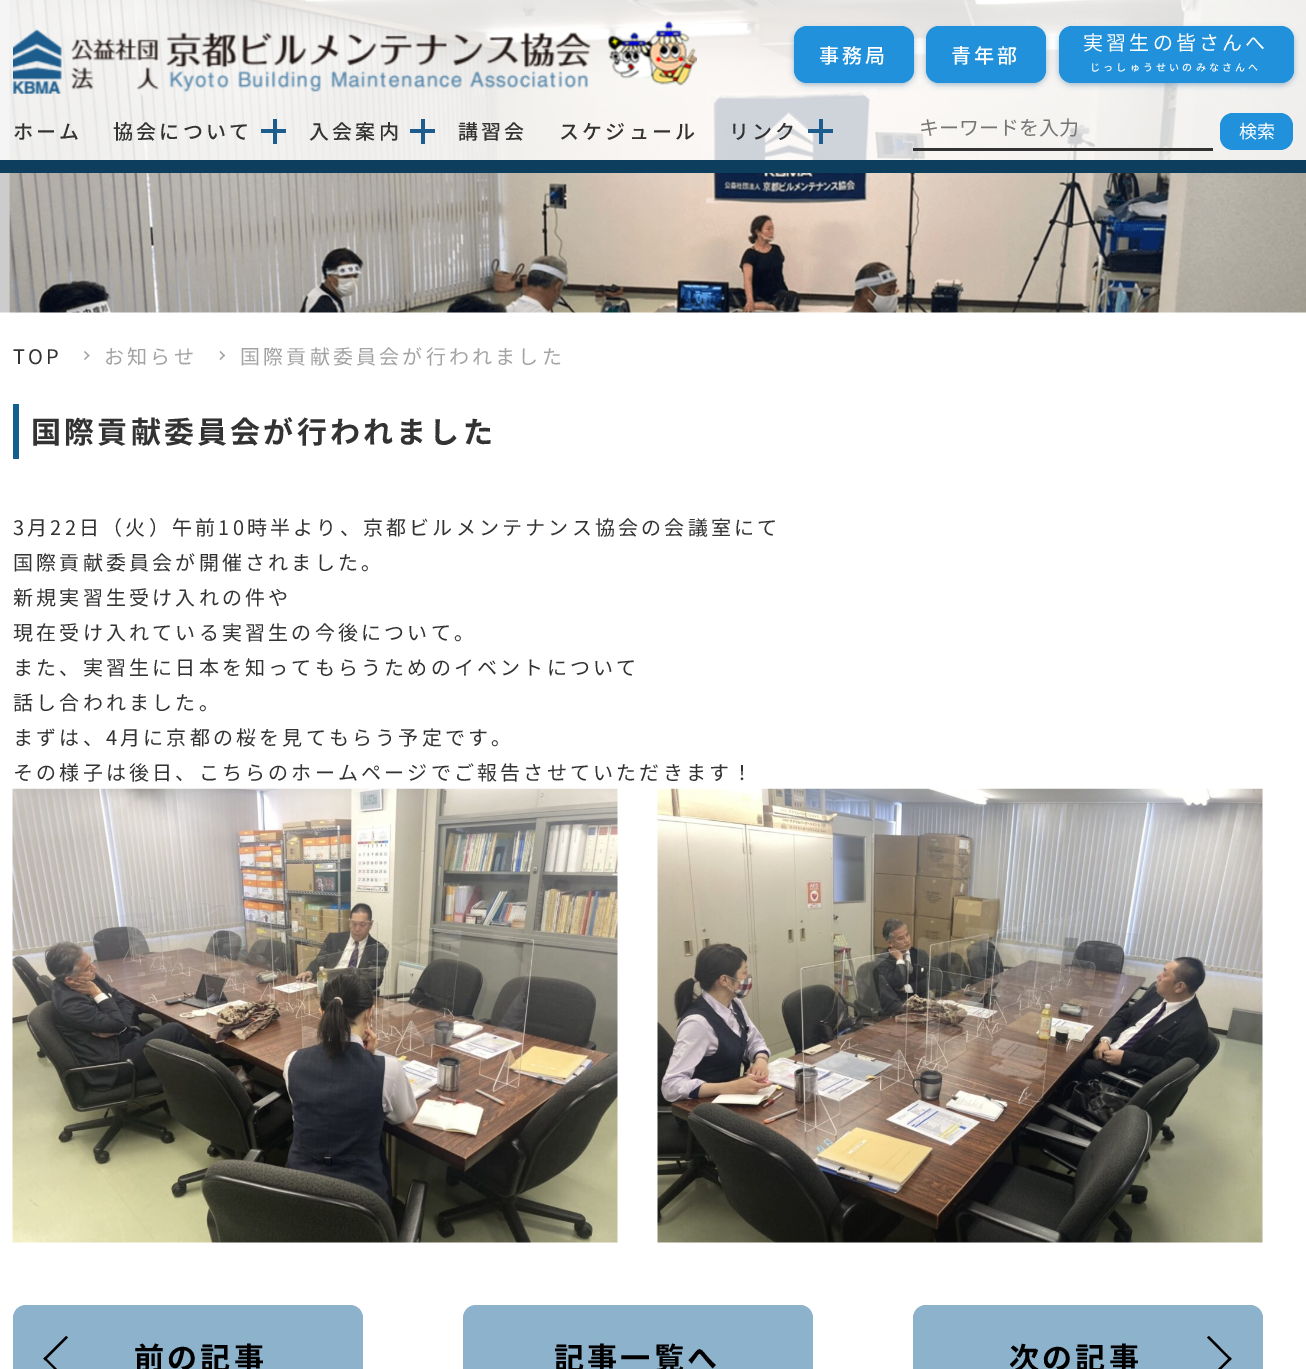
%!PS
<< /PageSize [1306 1369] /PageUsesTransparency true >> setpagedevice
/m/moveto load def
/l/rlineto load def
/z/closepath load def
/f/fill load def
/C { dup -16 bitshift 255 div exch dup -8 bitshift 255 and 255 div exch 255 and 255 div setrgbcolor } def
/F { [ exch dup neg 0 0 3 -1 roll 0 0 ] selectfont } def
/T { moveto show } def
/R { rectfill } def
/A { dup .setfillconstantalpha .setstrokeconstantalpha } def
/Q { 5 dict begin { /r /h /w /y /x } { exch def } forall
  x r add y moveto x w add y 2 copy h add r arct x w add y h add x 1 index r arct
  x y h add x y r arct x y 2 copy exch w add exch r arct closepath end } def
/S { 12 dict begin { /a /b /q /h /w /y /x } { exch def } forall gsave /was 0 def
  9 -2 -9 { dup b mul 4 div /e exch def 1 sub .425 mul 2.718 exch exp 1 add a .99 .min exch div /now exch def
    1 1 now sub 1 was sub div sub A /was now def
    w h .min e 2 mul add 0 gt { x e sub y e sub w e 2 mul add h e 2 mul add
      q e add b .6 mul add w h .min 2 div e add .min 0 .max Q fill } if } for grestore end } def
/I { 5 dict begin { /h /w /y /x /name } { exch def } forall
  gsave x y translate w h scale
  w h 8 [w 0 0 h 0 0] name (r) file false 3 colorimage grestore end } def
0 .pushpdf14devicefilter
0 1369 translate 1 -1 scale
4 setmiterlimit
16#FFFFFF C
0 0 1306 1369 R
(1.rgb) 0 0 1306 313 I
0.8 A
0 0 1306 160 R
1 A
16#0D3E5D C
0 160 1306 13 R
(2.rgb) 13 29 578 65 I
(3.rgb) 608 21 89 65 I
16#4A7EA2 C
794 29 120 56 13 3 .5 S
16#2091DA C
794 26 120 57 13 Q f
/NotoSansJP-Medium 20 F
16#FFFFFF C
819 63 m 3.2 0 (事務局) ashow
16#4A7EA2 C
926 29 120 56 13 3 .5 S
16#2091DA C
926 26 120 57 13 Q f
16#FFFFFF C
951 63 m 3.2 0 (青年部) ashow
16#4A7EA2 C
1059 29 235 56 13 3 .5 S
16#2091DA C
1059 26 235 57 13 Q f
/NotoSansJP-Regular 20 F
16#FFFFFF C
1083 50 m 3.2 0 (実習生の皆さんへ) ashow
/NotoSansJP-Medium 10 F
1090 71 m 3.2 0 (じっしゅうせいのみなさんへ) ashow
/NotoSansJP-Medium 20 F
16#333333 C
13 139 m 3.2 0 (ホーム) ashow
113 139 m 3.2 0 (協会について) ashow
16#1C5D8D C
261 129 25 4 R
273 119 4 25 R
16#333333 C
309 139 m 3.2 0 (入会案内) ashow
16#1C5D8D C
410 129 25 4 R
421 119 4 25 R
16#333333 C
458 139 m 3.2 0 (講習会) ashow
559 139 m 3.2 0 (スケジュール) ashow
729 139 m 3.2 0 (リンク) ashow
16#1C5D8D C
808 129 25 4 R
819 119 4 25 R
16#333333 C
913 148 300 3 R
/NotoSansJP-Regular 20 F
16#757575 C
(キーワードを入力) 919 135 T
16#2091DA C
1220 113 73 37 13 Q f
/NotoSansJP-Regular 18 F
16#FFFFFF C
(検索) 1239 138 T
/NotoSansJP-Regular 20 F
16#333333 C
13 364 m 3.2 0 (TOP) ashow
16#A3A3A3 C
85 351 m 4.5 4.5 l -1 1 l -4.5 -4.5 l z f
88.5 354.5 m 1 1 l -4.5 4.5 l -1 -1 l z f
104 364 m 3.2 0 (お知らせ) ashow
220.5 351 m 4.5 4.5 l -1 1 l -4.5 -4.5 l z f
224 354.5 m 1 1 l -4.5 4.5 l -1 -1 l z f
240 364 m 3.2 0 (国際貢献委員会が行われました) ashow
16#135F8E C
13 404 6 55 R
/NotoSansJP-Bold 30 F
16#333333 C
31 443 m 3.2 0 (国際貢献委員会が行われました) ashow
/NotoSansJP-Regular 20 F
13 535 m 3.2 0 (3月22日（火）午前10時半より、京都ビルメンテナンス協会の会議室にて) ashow
13 570 m 3.2 0 (国際貢献委員会が開催されました。) ashow
13 605 m 3.2 0 (新規実習生受け入れの件や) ashow
13 640 m 3.2 0 (現在受け入れている実習生の今後について。) ashow
13 675 m 3.2 0 (また、実習生に日本を知ってもらうためのイベントについて) ashow
13 710 m 3.2 0 (話し合われました。) ashow
13 745 m 3.2 0 (まずは、4月に京都の桜を見てもらう予定です。) ashow
13 780 m 3.2 0 (その様子は後日、こちらのホームページでご報告させていただきます！) ashow
(4.rgb) 12 788 606 455 I
(5.rgb) 657 788 606 455 I
16#8DB2CC C
13 1305 350 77 13 Q f
16#000000 C
66.5 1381.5 m -23 -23 l 1.5 -1.5 l 23 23 l z f
45 1360.5 m -1.5 -2 l 22.5 -22.5 l 2 1.5 l z f
/NotoSansJP-Bold 30 F
134 1369 m 3.2 0 (前の記事) ashow
16#8DB2CC C
463 1305 350 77 13 Q f
16#000000 C
554 1369 m 3.2 0 (記事一覧へ) ashow
16#8DB2CC C
913 1305 350 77 13 Q f
16#000000 C
1009 1369 m 3.2 0 (次の記事) ashow
1209 1336 m 22.5 23 l -1.5 1.5 l -23 -23 l z f
1230 1357 m 1.5 2 l -22.5 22.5 l -2 -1.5 l z f
.poppdf14devicefilter showpage
